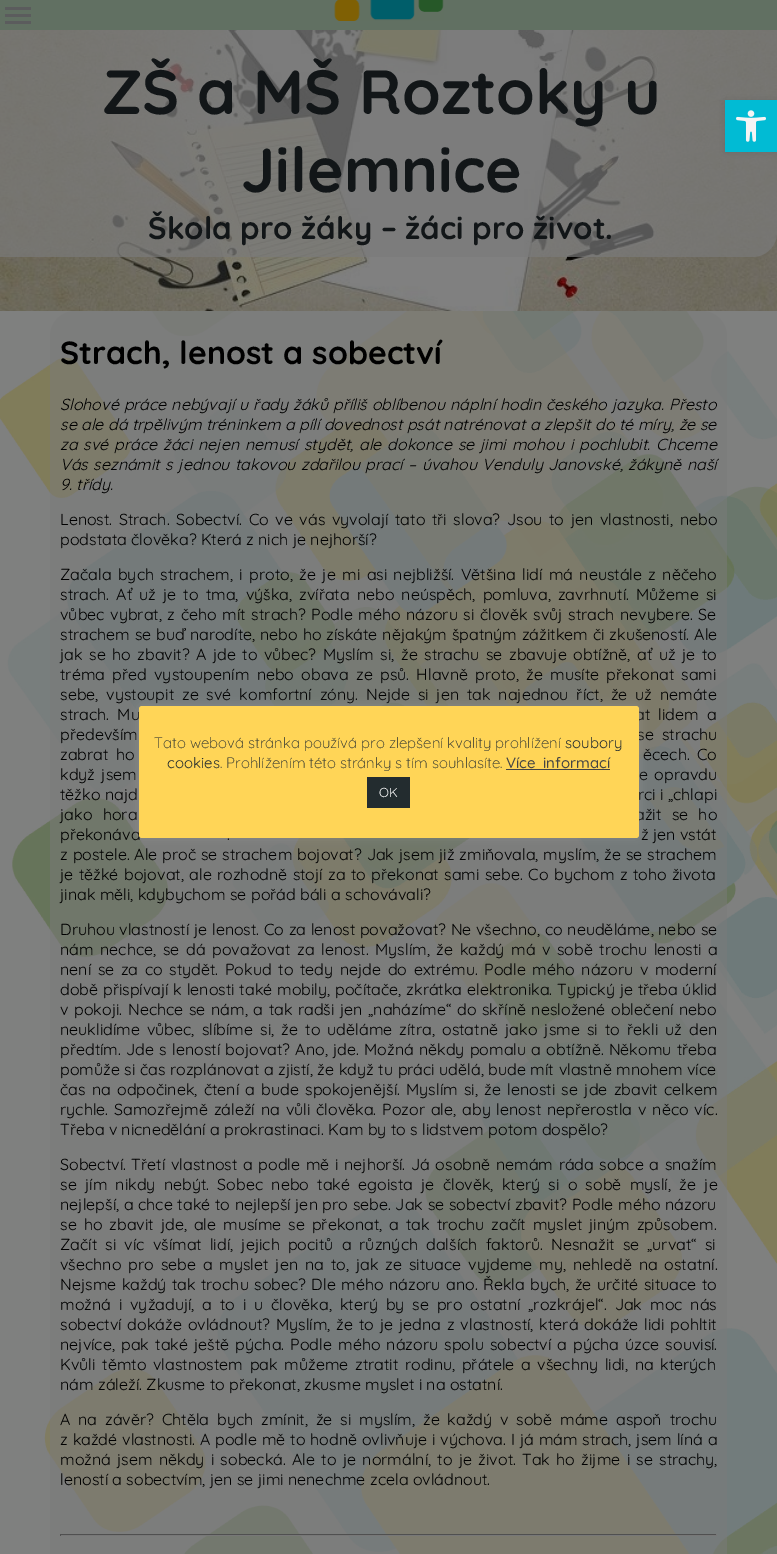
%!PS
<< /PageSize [777 1554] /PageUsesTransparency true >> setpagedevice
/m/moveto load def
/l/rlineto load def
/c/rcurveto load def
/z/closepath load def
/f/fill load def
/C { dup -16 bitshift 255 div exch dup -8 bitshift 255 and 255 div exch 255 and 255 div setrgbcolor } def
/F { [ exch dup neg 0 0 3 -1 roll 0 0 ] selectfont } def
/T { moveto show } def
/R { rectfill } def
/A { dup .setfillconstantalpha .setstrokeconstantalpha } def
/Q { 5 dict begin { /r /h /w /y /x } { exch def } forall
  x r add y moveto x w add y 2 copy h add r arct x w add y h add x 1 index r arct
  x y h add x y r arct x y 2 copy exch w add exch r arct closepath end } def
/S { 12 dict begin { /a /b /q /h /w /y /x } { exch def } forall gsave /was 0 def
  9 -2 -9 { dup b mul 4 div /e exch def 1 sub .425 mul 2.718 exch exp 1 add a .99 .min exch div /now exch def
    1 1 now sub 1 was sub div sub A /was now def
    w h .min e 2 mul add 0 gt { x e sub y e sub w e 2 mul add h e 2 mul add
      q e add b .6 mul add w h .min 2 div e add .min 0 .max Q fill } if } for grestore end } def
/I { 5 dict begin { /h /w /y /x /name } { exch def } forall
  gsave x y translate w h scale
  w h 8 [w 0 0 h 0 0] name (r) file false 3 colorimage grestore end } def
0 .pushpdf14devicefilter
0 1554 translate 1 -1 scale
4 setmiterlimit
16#FFFFFF C
0 0 777 1554 R
(1.rgb) 0 311 777 1243 I
(2.rgb) 0 30 777 281 I
16#265828 C
0 0 777 30 R
16#121618 C
5 7 26 3 R
5 14 26 3 R
5 21 26 3 R
0.7 A
16#7A7A7A C
0 -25 m 752 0 l 14 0 25 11 25 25 c 0 232 l 0 14 -11 25 -25 25 c -752 0 l z f
1 A
(3.rgb) 334 0 110 21 I
/Quicksand-Bold 62.25 F
16#121618 C
(ZŠ a MŠ Roztoky u) 102 114 T
(Jilemnice) 241 192 T
/Quicksand-Bold 31.1 F
(Škola pro žáky – žáci pro život.) 148 239 T
0.5 A
16#7A7A7A C
50 311 677 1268 25 Q f
/Quicksand-Bold 32 F
1 A
16#000000 C
(Strach, lenost a sobectví) 60 364 T
/Quicksand-Italic 16 F
60 410 m .6 0 32 (Slohové práce nebývají u řady žáků příliš oblíbenou náplní hodin českého jazyka. Přesto) widthshow
60 430 m .1 0 32 (se ale dá trpělivým tréninkem a pílí dovednost psát natrénovat a zlepšit do té míry, že se) widthshow
60 450 m 1.6 0 32 (za své práce žáci nejen nemusí stydět, ale dokonce se jimi mohou i pochlubit. Chceme) widthshow
60 470 m 1.1 0 32 (Vás seznámit s jednou takovou zdařilou prací – úvahou Venduly Janovské, žákyně naší) widthshow
(9. třídy.) 60 490 T
/Quicksand-Regular 16 F
60 525 m 2.25 0 32 (Lenost. Strach. Sobectví. Co ve vás vyvolají tato tři slova? Jsou to jen vlastnosti, nebo) widthshow
(podstata člověka? Která z nich je nejhorší?) 60 545 T
60 580 m 2 0 32 (Začala bych strachem, i proto, že je mi asi nejbližší. Většina lidí má neustále z něčeho) widthshow
60 600 m 2.75 0 32 (strach. Ať už je to tma, výška, zvířata nebo neúspěch, pomluva, zavrhnutí. Můžeme si) widthshow
60 620 m 1.25 0 32 (vůbec vybrat, z čeho mít strach? Podle mého názoru si člověk svůj strach nevybere. Se) widthshow
60 640 m .5 0 32 (strachem se buď narodíte, nebo ho získáte nějakým špatným zážitkem či zkušeností. Ale) widthshow
60 660 m 2.1 0 32 (jak se ho zbavit? A jde to vůbec? Myslím si, že strachu se zbavuje obtížně, ať už je to) widthshow
60 680 m 2.9 0 32 (tréma před vystoupením nebo obava ze psů. Hlavně proto, že musíte překonat sami) widthshow
60 700 m 3.5 0 32 (sebe, vystoupit ze své komfortní zóny. Nejde si jen tak najednou říct, že už nemáte) widthshow
60 720 m 3.9 0 32 (strach. Mu) widthshow
635 720 m 3.9 0 32 (at lidem a) widthshow
60 740 m 4 0 32 (především) widthshow
637 740 m 4 0 32 (se strachu) widthshow
60 760 m 2.9 0 32 (zabrat ho) widthshow
643 760 m 2.9 0 32 (ěcech. Co) widthshow
60 780 m 2 0 32 (když jsem) widthshow
639 780 m 2 0 32 (e opravdu) widthshow
(těžko najd) 60 800 T
(rci i „chlapi) 638 800 T
60 820 m 6 0 32 (jako hora) widthshow
635 820 m 6 0 32 (ažit se ho) widthshow
(překonáva) 60 840 T
(.) 227 840 T
(ž jen vstát) 641 840 T
60 860 m .5 0 32 (z postele. Ale proč se strachem bojovat? Jak jsem již zmiňovala, myslím, že se strachem) widthshow
60 880 m 1 0 32 (je těžké bojovat, ale rozhodně stojí za to překonat sami sebe. Co bychom z toho života) widthshow
(jinak měli, kdybychom se pořád báli a schovávali?) 60 900 T
60 935 m .25 0 32 (Druhou vlastností je lenost. Co za lenost považovat? Ne všechno, co neuděláme, nebo se) widthshow
60 955 m 2.25 0 32 (nám nechce, se dá považovat za lenost. Myslím, že každý má v sobě trochu lenosti a) widthshow
60 975 m 2.25 0 32 (není se za co stydět. Pokud to tedy nejde do extrému. Podle mého názoru v moderní) widthshow
60 995 m .4 0 32 (době přispívají k lenosti také mobily, počítače, zkrátka elektronika. Typický je třeba úklid) widthshow
60 1015 m 1.25 0 32 (v pokoji. Nechce se nám, a tak radši jen „naházíme“ do skříně nesložené oblečení nebo) widthshow
60 1035 m 2.75 0 32 (neuklidíme vůbec, slíbíme si, že to uděláme zítra, ostatně jako jsme si to řekli už den) widthshow
60 1055 m .9 0 32 (předtím. Jde s leností bojovat? Ano, jde. Možná někdy pomalu a obtížně. Někomu třeba) widthshow
60 1075 m .25 0 32 (pomůže si čas rozplánovat a zjistí, že když tu práci udělá, bude mít vlastně mnohem více) widthshow
60 1095 m 1.9 0 32 (čas na odpočinek, čtení a bude spokojenější. Myslím si, že lenosti se jde zbavit celkem) widthshow
60 1115 m 1.5 0 32 (rychle. Samozřejmě záleží na vůli člověka. Pozor ale, aby lenost nepřerostla v něco víc.) widthshow
(Třeba v nicnedělání a prokrastinaci. Kam by to s lidstvem potom dospělo?) 60 1135 T
60 1170 m 1.25 0 32 (Sobectví. Třetí vlastnost a podle mě i nejhorší. Já osobně nemám ráda sobce a snažím) widthshow
60 1190 m 3.9 0 32 (se jím nikdy nebýt. Sobec nebo také egoista je člověk, který si o sobě myslí, že je) widthshow
60 1210 m .3 0 32 (nejlepší, a chce také to nejlepší jen pro sebe. Jak se sobectví zbavit? Podle mého názoru) widthshow
60 1230 m 2.6 0 32 (se ho zbavit jde, ale musíme se překonat, a tak trochu začít myslet jiným způsobem.) widthshow
60 1250 m 3.75 0 32 (Začít si víc všímat lidí, jejich pocitů a různých dalších faktorů. Nesnažit se „urvat“ si) widthshow
60 1270 m 2.5 0 32 (všechno pro sebe a myslet jen na to, jak ze situace vyjdeme my, nehledě na ostatní.) widthshow
60 1290 m 1.1 0 32 (Nejsme každý tak trochu sobec? Dle mého názoru ano. Řekla bych, že určité situace to) widthshow
60 1310 m 3.5 0 32 (možná i vyžadují, a to i u člověka, který by se pro ostatní „rozkrájel“. Jak moc nás) widthshow
60 1330 m 1.5 0 32 (sobectví dokáže ovládnout? Myslím, že to je jedna z vlastností, která dokáže lidi pohltit) widthshow
60 1350 m 1.75 0 32 (nejvíce, pak také ještě pýcha. Podle mého názoru spolu sobectví a pýcha úzce souvisí.) widthshow
60 1370 m 2.25 0 32 (Kvůli těmto vlastnostem pak můžeme ztratit rodinu, přátele a všechny lidi, na kterých) widthshow
(nám záleží. Zkusme to překonat, zkusme myslet i na ostatní.) 60 1390 T
60 1425 m 3.5 0 32 (A na závěr? Chtěla bych zmínit, že si myslím, že každý v sobě máme aspoň trochu) widthshow
60 1445 m .5 0 32 (z každé vlastnosti. A podle mě to hodně ovlivňuje i výchova. I já mám strach, jsem líná a) widthshow
60 1465 m 1.9 0 32 (možná jsem někdy i sobecká. Ale to je normální, to je život. Tak ho žijme i se strachy,) widthshow
(leností a sobectvím, jen se jimi nenechme zcela ovládnout.) 60 1485 T
16#505050 C
60 1534 657 1 R
16#777777 C
716 1534 1 2 R
60 1535 657 1 R
16#505050 C
60 1534 1 2 R
16#000000 C
725 100 52 52 0 5 .1 S
16#01BBD4 C
725 100 52 52 R
(4.rgb) 736 110 30 32 I
16#ACABAB C
139 705 500 132 3 5 .3 S
16#FFD557 C
139 706 500 132 3 Q f
/Quicksand-Light 15 F
16#232C2F C
(Tato webová stránka používá pro zlepšení kvality prohlížení) 154 748 T
/Quicksand-Regular 15 F
(soubory) 565 748 T
(cookies) 167 768 T
/Quicksand-Light 15 F
(. Prohlížením této stránky s tím souhlasíte.) 220 768 T
/Quicksand-Medium 15 F
16#444444 C
506 768 m 3 0 32 (Více informací) widthshow
506 769 104 1 R
16#232C2F C
367 777 43 31 R
/Quicksand-Regular 13 F
16#F4F4F4 C
(OK) 379 797 T
.poppdf14devicefilter showpage
